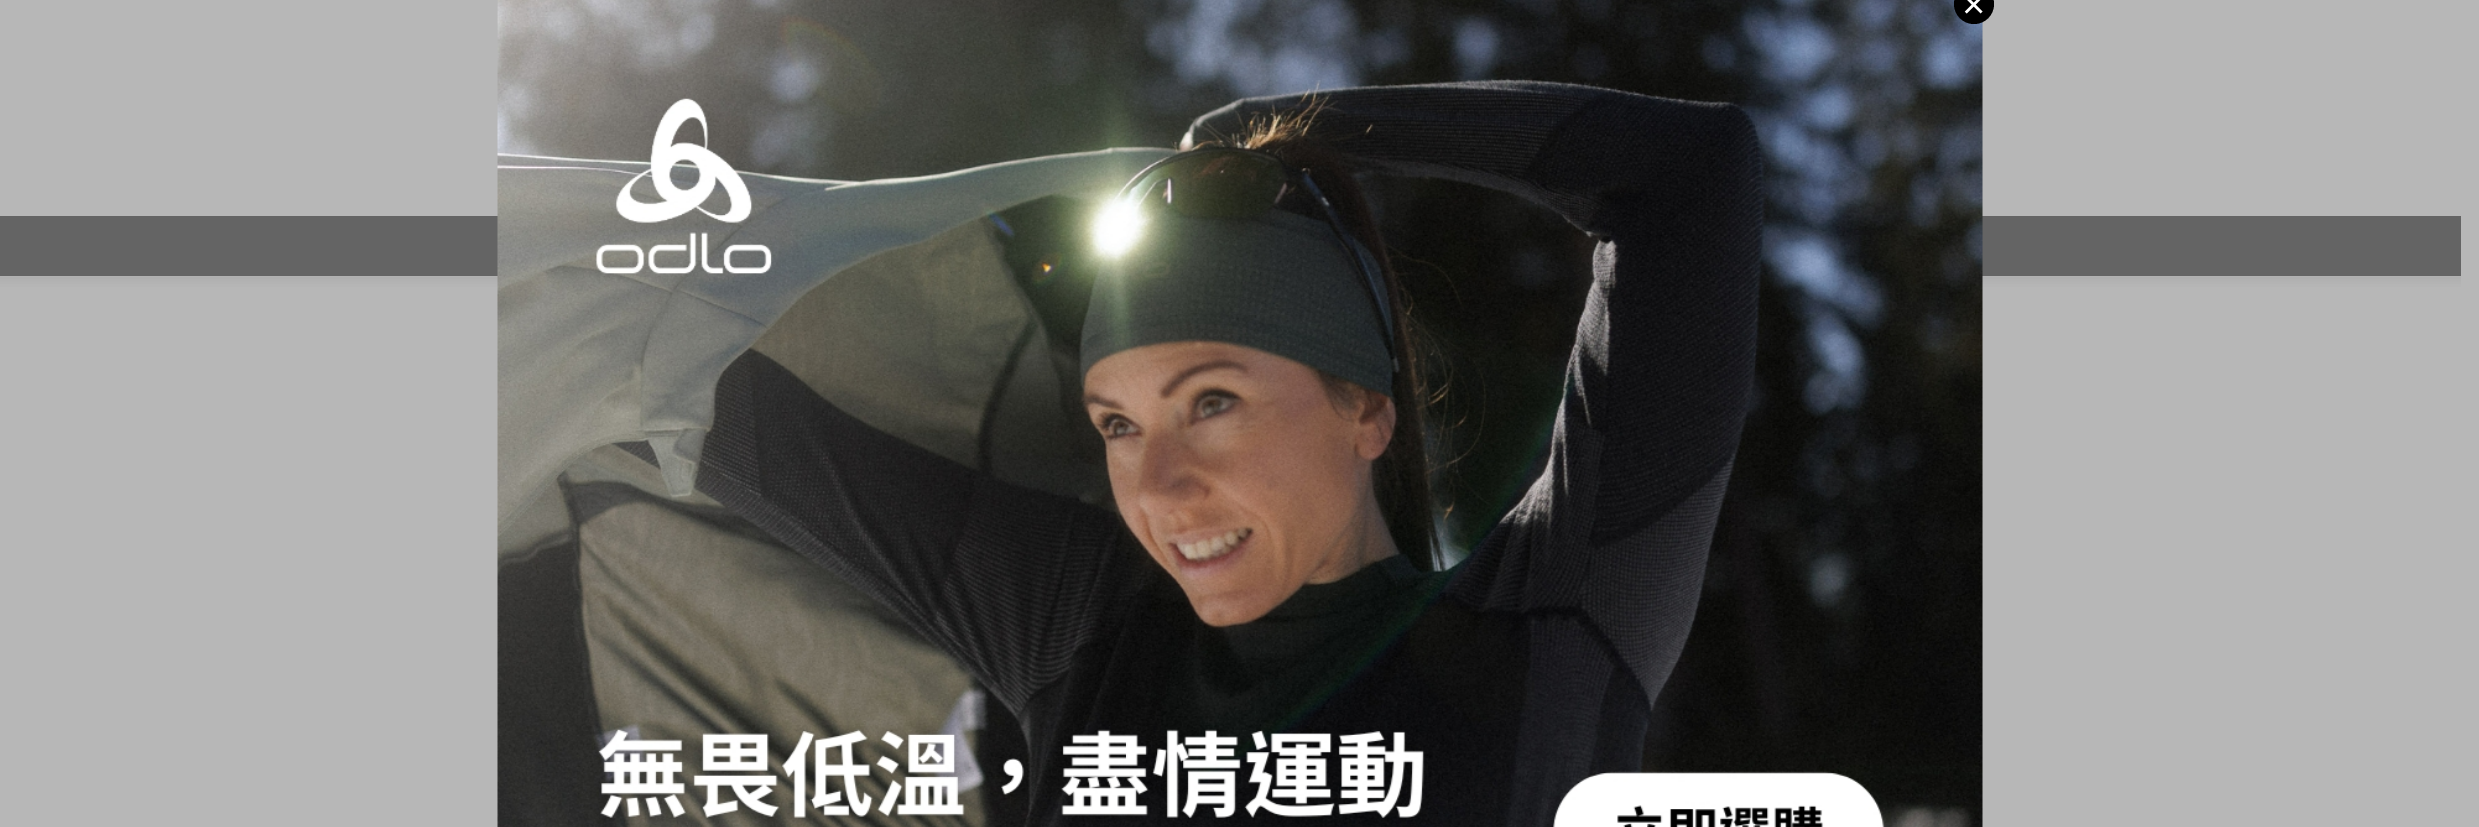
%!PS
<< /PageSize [2479 827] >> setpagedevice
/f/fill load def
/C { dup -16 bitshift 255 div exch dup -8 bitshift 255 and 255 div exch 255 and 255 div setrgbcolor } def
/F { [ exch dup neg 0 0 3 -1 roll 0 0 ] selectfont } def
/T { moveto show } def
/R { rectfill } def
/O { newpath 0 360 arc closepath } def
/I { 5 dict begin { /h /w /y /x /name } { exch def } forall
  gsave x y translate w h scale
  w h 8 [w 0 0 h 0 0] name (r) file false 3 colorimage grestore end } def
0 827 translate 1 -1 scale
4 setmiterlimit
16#B7B7B7 C
0 0 2479 827 R
16#646464 C
0 216 2461 60 R
(2.rgb) 0 276 2461 11 I
(1.rgb) 497 0 1486 827 I
16#000000 C
1974 4 20 O f
/LiberationSans-Regular 40 F
16#FFFFFF C
(×) 1962 18 T
showpage
